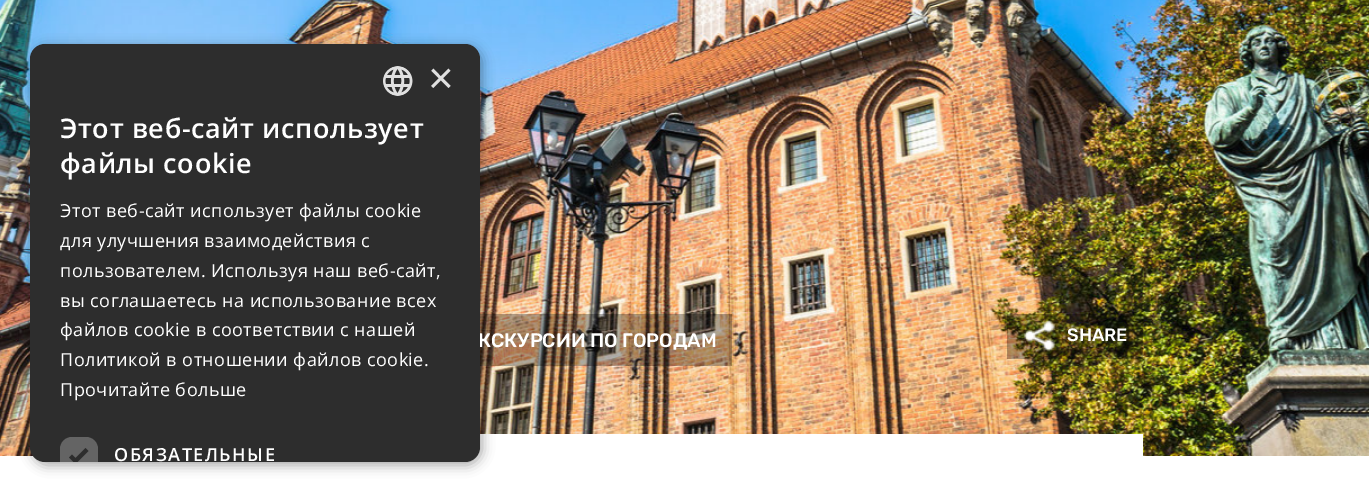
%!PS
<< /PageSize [1369 492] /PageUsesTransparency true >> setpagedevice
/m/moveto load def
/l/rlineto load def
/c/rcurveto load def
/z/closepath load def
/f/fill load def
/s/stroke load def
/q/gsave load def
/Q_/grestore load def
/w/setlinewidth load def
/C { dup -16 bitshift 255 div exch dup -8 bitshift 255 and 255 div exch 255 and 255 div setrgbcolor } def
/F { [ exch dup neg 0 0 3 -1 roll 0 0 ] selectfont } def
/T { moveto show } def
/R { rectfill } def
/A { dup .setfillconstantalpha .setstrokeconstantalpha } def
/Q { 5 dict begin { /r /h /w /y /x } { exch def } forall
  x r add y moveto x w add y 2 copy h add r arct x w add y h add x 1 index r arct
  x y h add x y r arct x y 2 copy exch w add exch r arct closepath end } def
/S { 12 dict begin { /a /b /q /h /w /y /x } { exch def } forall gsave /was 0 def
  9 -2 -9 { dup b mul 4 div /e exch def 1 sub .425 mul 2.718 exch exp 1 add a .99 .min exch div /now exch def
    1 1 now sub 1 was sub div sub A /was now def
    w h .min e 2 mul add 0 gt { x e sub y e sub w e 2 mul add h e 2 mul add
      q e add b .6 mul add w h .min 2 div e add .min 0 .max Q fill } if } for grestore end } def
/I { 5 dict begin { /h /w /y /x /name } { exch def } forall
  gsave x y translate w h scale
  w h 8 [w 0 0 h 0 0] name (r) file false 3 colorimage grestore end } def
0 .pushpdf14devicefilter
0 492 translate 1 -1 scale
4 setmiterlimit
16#FFFFFF C
0 0 1369 492 R
(2.rgb) 0 0 1369 456 I
0.3 A
16#000000 C
480 314 252 52 R
1 A
16#FFFFFF C
228 434 915 22 R
16#000000 C
32 47 450 418 15 6 .35 S
/Rubik-Medium 19.5 F
16#FFFFFF C
(КСКУРСИИ ПО ГОРОДАМ) 478 347 T
16#2D2D2D C
30 44 450 418 15 Q f
(1.rgb) 383 66 30 30 I
/LiberationSans-Regular 44 F
16#E0E0E0 C
(×) 428 93 T
/OpenSans-SemiBold 27 F
16#FFFFFF C
60 138 m .6 0 (Этот веб-сайт использует) ashow
60 173 m .6 0 (файлы cookie) ashow
/OpenSans-Regular 18 F
60 217 m .45 0 (Этот веб-сайт использует файлы cookie) ashow
60 247 m .45 0 (для улучшения взаимодействия с) ashow
60 277 m .45 0 (пользователем. Используя наш веб-сайт,) ashow
60 307 m .45 0 (вы соглашаетесь на использование всех) ashow
60 336 m .45 0 (файлов cookie в соответствии с нашей) ashow
60 366 m .45 0 (Политикой в отношении файлов cookie.) ashow
60 396 m .45 0 (Прочитайте больше) ashow
16#646464 C
72 437 m 14 0 l 6.5 0 12 5.5 12 12 c 0 13 l -38 0 l 0 -13 l 0 -6.5 5.5 -12 12 -12 c z f
q
30 44 450 418 15 Q clip newpath
16#2D2D2D C
3.9 w
70.5 456 m 5 5 l 11.5 -11.5 l s
Q_
/OpenSans-SemiBold 18 F
16#FFFFFF C
114 461 m 1.5 0 (ОБЯЗАТЕЛЬНЫЕ) ashow
0.3 A
16#000000 C
1007 314 136 45 R
1 A
(3.rgb) 1024 320 31 32 I
/Rubik-Medium 18 F
16#FFFFFF C
(SHARE) 1067 341 T
.poppdf14devicefilter showpage
